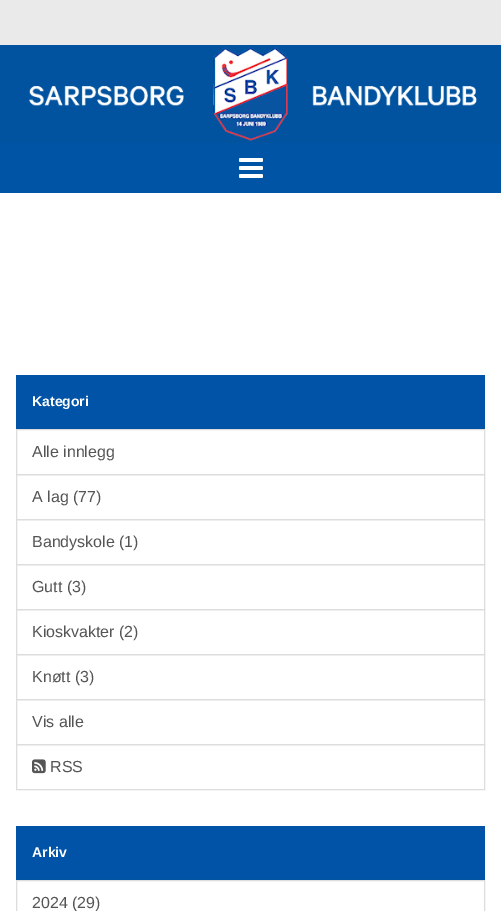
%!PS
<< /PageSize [501 911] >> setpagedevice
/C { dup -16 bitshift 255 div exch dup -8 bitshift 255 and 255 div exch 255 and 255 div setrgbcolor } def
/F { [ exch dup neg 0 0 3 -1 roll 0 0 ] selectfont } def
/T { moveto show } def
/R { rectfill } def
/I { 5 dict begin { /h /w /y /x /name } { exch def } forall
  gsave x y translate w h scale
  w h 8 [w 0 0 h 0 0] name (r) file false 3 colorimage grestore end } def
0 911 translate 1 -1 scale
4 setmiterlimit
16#EAEAEA C
0 0 501 911 R
16#0153A0 C
0 45 501 98 R
(1.rgb) 29 47 448 94 I
16#0054A6 C
0 143 501 50 R
(2.rgb) 239 158 24 20 I
16#FFFFFF C
0 193 501 718 R
16#0053A6 C
16 375 469 53 R
16#0053A0 C
16 428 469 1 R
/LiberationSans-Bold 14 F
16#FFFFFF C
(Kategori) 32 406 T
16#DDDDDD C
16.5 429.5 468 45 rectstroke
/LiberationSans-Regular 16 F
16#555555 C
(Alle innlegg) 32 457 T
16#DDDDDD C
16.5 474.5 468 45 rectstroke
16#555555 C
(A lag \(77\)) 32 502 T
16#DDDDDD C
16.5 519.5 468 45 rectstroke
16#555555 C
(Bandyskole \(1\)) 32 547 T
16#DDDDDD C
16.5 564.5 468 45 rectstroke
16#555555 C
(Gutt \(3\)) 32 592 T
16#DDDDDD C
16.5 609.5 468 45 rectstroke
16#555555 C
(Kioskvakter \(2\)) 32 637 T
16#DDDDDD C
16.5 654.5 468 45 rectstroke
16#555555 C
(Knøtt \(3\)) 32 682 T
16#DDDDDD C
16.5 699.5 468 45 rectstroke
16#555555 C
(Vis alle) 32 727 T
16#DDDDDD C
16.5 744.5 468 45 rectstroke
(3.rgb) 32 759 14 15 I
16#555555 C
(RSS) 50 772 T
16#0053A6 C
16 826 469 53 R
16#0053A0 C
16 879 469 1 R
/LiberationSans-Bold 14 F
16#FFFFFF C
(Arkiv) 32 857 T
16#DDDDDD C
16.5 880.5 468 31 rectstroke
/LiberationSans-Regular 16 F
16#555555 C
(2024 \(29\)) 32 908 T
showpage
